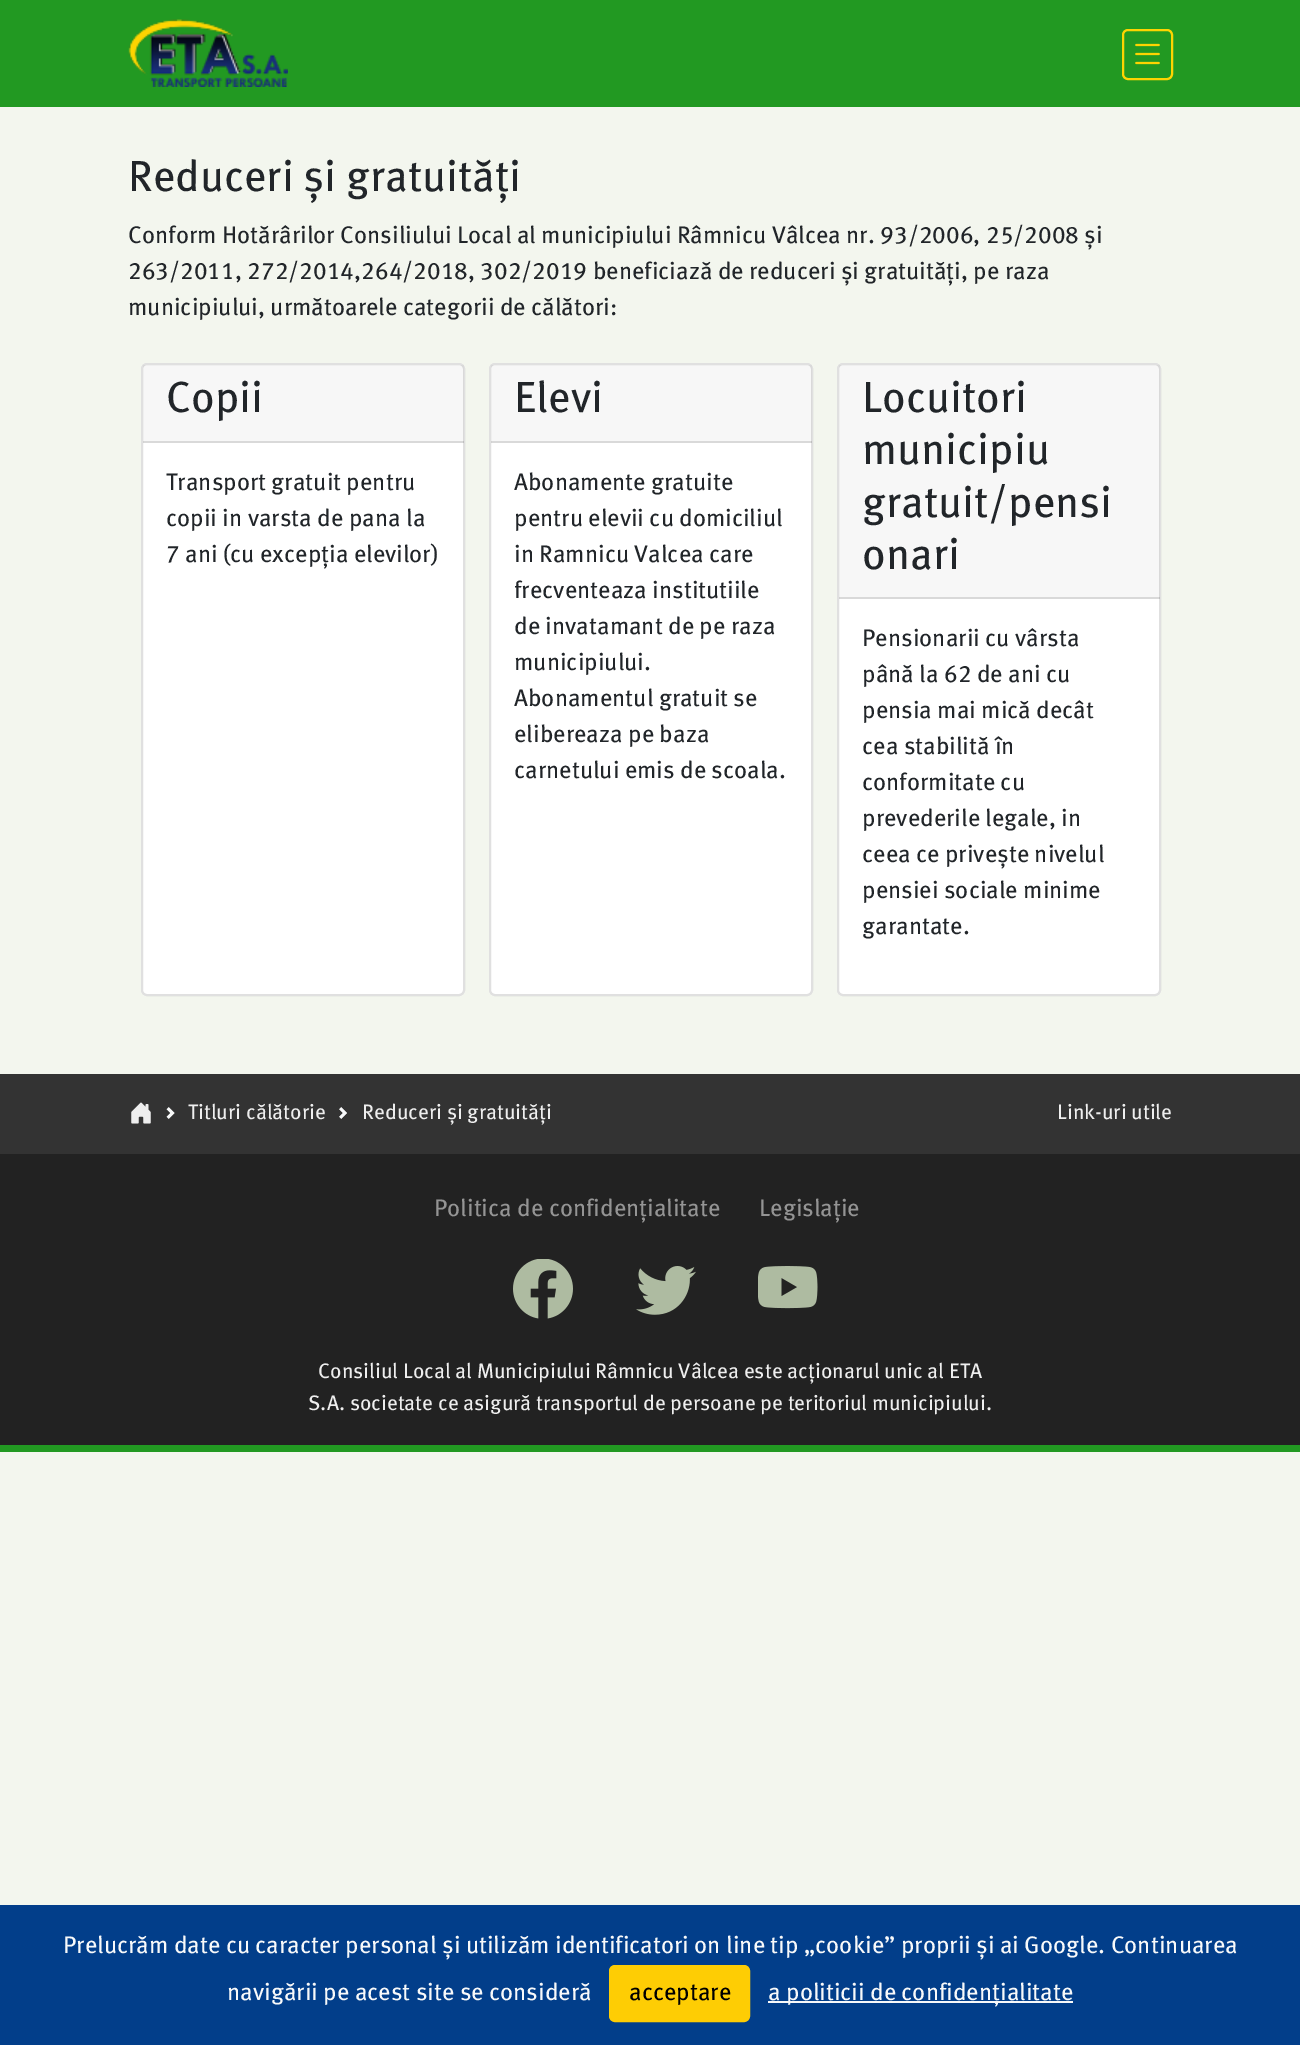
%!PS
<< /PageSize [1300 2045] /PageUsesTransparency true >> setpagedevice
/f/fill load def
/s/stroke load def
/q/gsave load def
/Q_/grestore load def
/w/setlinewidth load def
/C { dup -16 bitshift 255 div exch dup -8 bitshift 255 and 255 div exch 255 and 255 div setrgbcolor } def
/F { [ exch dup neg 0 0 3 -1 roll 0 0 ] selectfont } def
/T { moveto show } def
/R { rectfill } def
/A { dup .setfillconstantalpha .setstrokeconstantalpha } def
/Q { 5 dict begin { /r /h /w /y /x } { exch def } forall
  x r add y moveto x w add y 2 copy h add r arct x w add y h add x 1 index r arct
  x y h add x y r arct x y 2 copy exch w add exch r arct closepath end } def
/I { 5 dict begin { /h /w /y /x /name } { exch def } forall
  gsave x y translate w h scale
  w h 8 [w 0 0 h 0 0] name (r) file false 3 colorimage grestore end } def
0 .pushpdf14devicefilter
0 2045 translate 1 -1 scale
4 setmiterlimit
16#F3F6EE C
0 0 1300 2045 R
16#229922 C
0 0 1300 107 R
(1.rgb) 128 19 160 68 I
16#FDD401 C
2 w
1123 30 49 49 5 Q s
(2.rgb) 1135 43 25 22 I
/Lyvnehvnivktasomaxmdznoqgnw-Regular 43.5 F
16#212529 C
(Reduceri și gratuități) 128 191 T
/Lyvnehvnivktasomaxmdznoqgnw-Regular 24 F
(Conform Hotărârilor Consiliului Local al municipiului Râmnicu Vâlcea nr. 93/2006, 25/2008 și) 128 243 T
(263/2011, 272/2014,264/2018, 302/2019 beneficiază de reduceri și gratuități, pe raza) 128 279 T
(municipiului, următoarele categorii de călători:) 128 315 T
16#FFFFFF C
141 363 324 633 6 Q f
0.12 A
16#000000 C
142 364 322 631 5 Q s
0.03 A
143 365 321 78 R
0.12 A
143 441 321 2 R
/Lyvnehvnivktasomaxmdznoqgnw-Regular 43.5 F
1 A
16#212529 C
(Copii) 166 412 T
/Lyvnehvnivktasomaxmdznoqgnw-Regular 24 F
(Transport gratuit pentru) 166 490 T
(copii in varsta de pana la) 166 526 T
(7 ani \(cu excepția elevilor\)) 166 562 T
16#FFFFFF C
489 363 324 633 6 Q f
0.12 A
16#000000 C
490 364 322 631 5 Q s
0.03 A
491 365 321 78 R
0.12 A
491 441 321 2 R
/Lyvnehvnivktasomaxmdznoqgnw-Regular 43.5 F
1 A
16#212529 C
(Elevi) 514 412 T
/Lyvnehvnivktasomaxmdznoqgnw-Regular 24 F
(Abonamente gratuite) 514 490 T
(pentru elevii cu domiciliul) 514 526 T
(in Ramnicu Valcea care) 514 562 T
(frecventeaza institutiile) 514 598 T
(de invatamant de pe raza) 514 634 T
(municipiului.) 514 670 T
(Abonamentul gratuit se) 514 706 T
(elibereaza pe baza) 514 742 T
(carnetului emis de scoala.) 514 778 T
16#FFFFFF C
837 363 324 633 6 Q f
0.12 A
16#000000 C
838 364 322 631 5 Q s
0.03 A
839 365 321 234 R
0.12 A
839 597 321 2 R
/Lyvnehvnivktasomaxmdznoqgnw-Regular 43.5 F
1 A
16#212529 C
(Locuitori) 862 412 T
(municipiu) 862 464 T
(gratuit/pensi) 862 517 T
(onari) 862 569 T
/Lyvnehvnivktasomaxmdznoqgnw-Regular 24 F
(Pensionarii cu vârsta) 862 646 T
(până la 62 de ani cu) 862 682 T
(pensia mai mică decât) 862 718 T
(cea stabilită în) 862 754 T
(conformitate cu) 862 790 T
(prevederile legale, in) 862 826 T
(ceea ce privește nivelul) 862 862 T
(pensiei sociale minime) 862 898 T
(garantate.) 862 934 T
16#333333 C
0 1074 1300 80 R
(3.rgb) 131 1102 20 22 I
(4.rgb) 166 1107 9 12 I
/Lyvnehvnivktasomaxmdznoqgnw-Regular 21 F
16#EEEEEE C
(Titluri călătorie) 188 1119 T
(5.rgb) 339 1107 8 12 I
(Reduceri și gratuități) 362 1119 T
(Link-uri utile) 1057 1119 T
16#222222 C
0 1154 1300 291 R
/Lyvnehvnivktasomaxmdznoqgnw-Regular 24 F
16#949494 C
(Politica de confidențialitate) 434 1216 T
(Legislație) 759 1216 T
(6.rgb) 513 1259 60 60 I
(7.rgb) 636 1266 60 49 I
(8.rgb) 758 1266 60 43 I
/Lyvnehvnivktasomaxmdznoqgnw-Regular 21 F
16#EEEEEE C
(Consiliul Local al Municipiului Râmnicu Vâlcea este acționarul unic al ETA) 318 1378 T
(S.A. societate ce asigură transportul de persoane pe teritoriul municipiului.) 308 1410 T
16#229922 C
0 1445 1300 7 R
16#023E8A C
0 1905 1300 140 R
/Lyvnehvnivktasomaxmdznoqgnw-Regular 24 F
16#F8F9FA C
(Prelucrăm date cu caracter personal și utilizăm identificatori on line tip „cookie” proprii și ai Google. Continuarea) 63 1953 T
(navigării pe acest site se consideră) 227 2000 T
16#FECD04 C
610 1966 139 55 5 Q q f Q_
s
16#000000 C
(acceptare) 629 2000 T
16#F8F9FA C
768 2001 305 2 R
(a politicii de confidențialitate) 768 2000 T
.poppdf14devicefilter showpage
